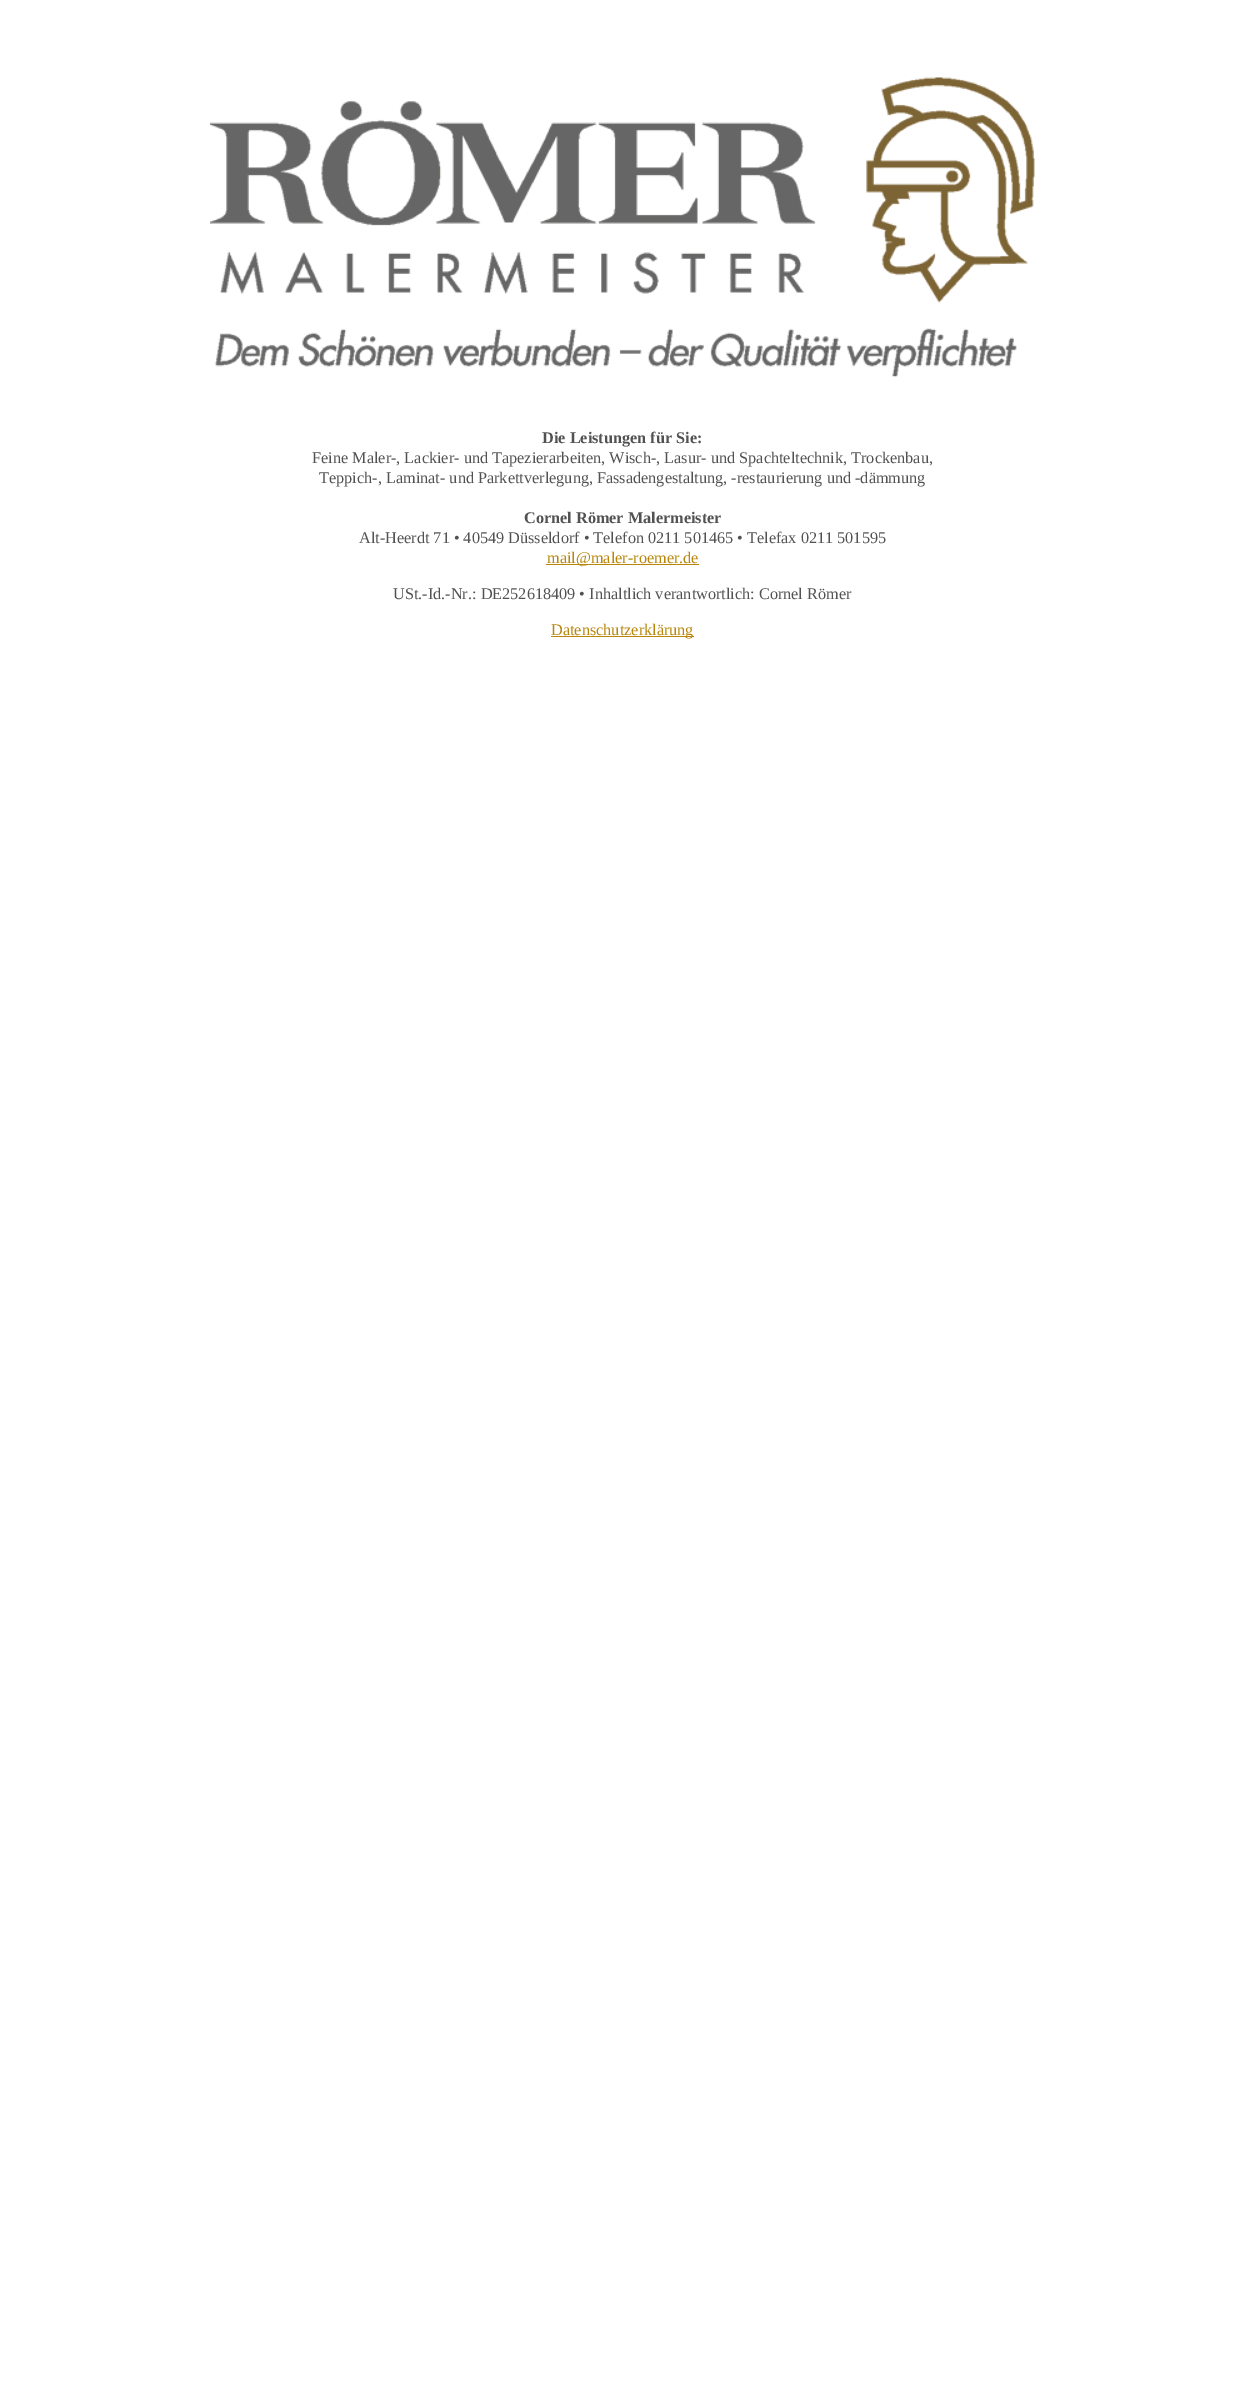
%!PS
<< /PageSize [1245 2404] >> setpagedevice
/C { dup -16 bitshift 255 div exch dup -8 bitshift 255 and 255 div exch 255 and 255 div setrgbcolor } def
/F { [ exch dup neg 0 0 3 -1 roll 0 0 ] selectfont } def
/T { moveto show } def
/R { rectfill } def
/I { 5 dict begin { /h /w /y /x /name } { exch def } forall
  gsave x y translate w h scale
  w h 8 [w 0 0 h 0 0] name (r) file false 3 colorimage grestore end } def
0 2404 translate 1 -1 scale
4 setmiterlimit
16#FFFFFF C
0 0 1245 2404 R
(1.rgb) 210 77 825 300 I
/LiberationSerif-Bold 16.25 F
16#525252 C
(Die Leistungen für Sie:) 542 443 T
/LiberationSerif-Regular 16.25 F
(Feine Maler-, Lackier- und Tapezierarbeiten, Wisch-, Lasur- und Spachteltechnik, Trockenbau,) 312 463 T
(Teppich-, Laminat- und Parkettverlegung, Fassadengestaltung, -restaurierung und -dämmung) 319 483 T
/LiberationSerif-Bold 16.25 F
(Cornel Römer Malermeister) 524 523 T
/LiberationSerif-Regular 16.25 F
(Alt-Heerdt 71 • 40549 Düsseldorf • Telefon 0211 501465 • Telefax 0211 501595) 359 543 T
16#B8860B C
546 564 153 1 R
(mail@maler-roemer.de) 547 563 T
16#525252 C
(USt.-Id.-Nr.: DE252618409 • Inhaltlich verantwortlich: Cornel Römer) 393 599 T
16#B8860B C
551 636 143 1 R
(Datenschutzerklärung) 551 635 T
showpage
